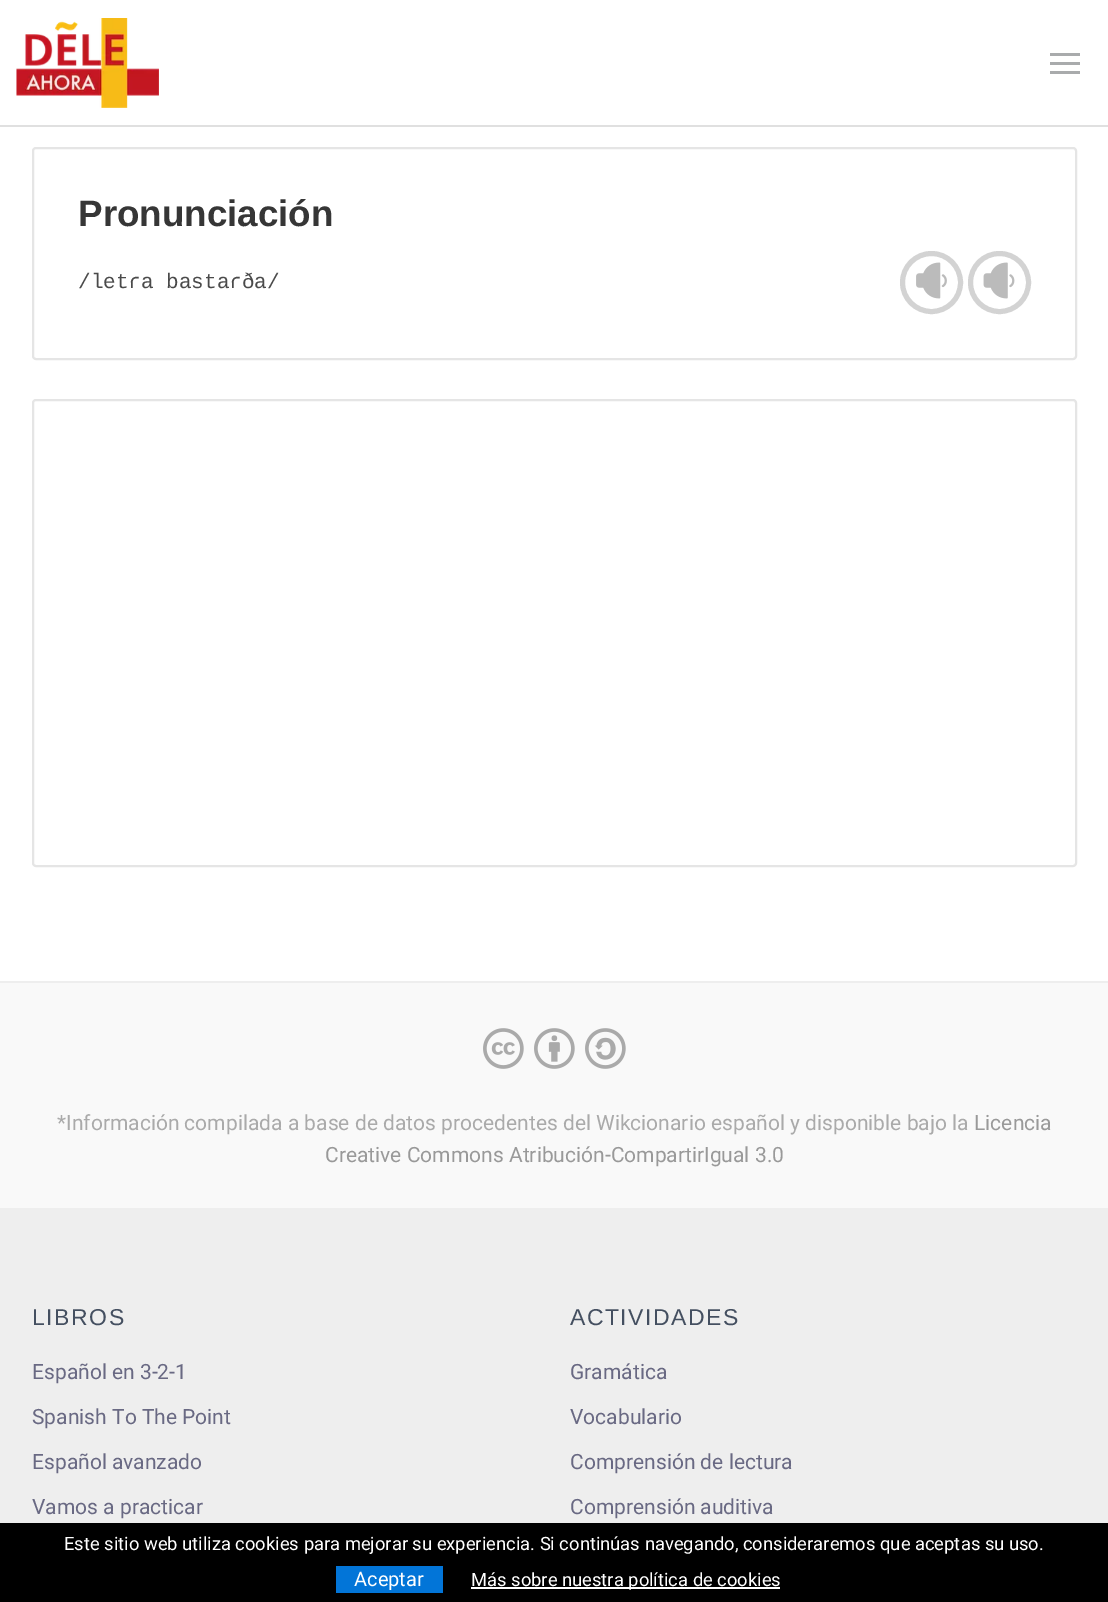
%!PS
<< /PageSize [1108 1602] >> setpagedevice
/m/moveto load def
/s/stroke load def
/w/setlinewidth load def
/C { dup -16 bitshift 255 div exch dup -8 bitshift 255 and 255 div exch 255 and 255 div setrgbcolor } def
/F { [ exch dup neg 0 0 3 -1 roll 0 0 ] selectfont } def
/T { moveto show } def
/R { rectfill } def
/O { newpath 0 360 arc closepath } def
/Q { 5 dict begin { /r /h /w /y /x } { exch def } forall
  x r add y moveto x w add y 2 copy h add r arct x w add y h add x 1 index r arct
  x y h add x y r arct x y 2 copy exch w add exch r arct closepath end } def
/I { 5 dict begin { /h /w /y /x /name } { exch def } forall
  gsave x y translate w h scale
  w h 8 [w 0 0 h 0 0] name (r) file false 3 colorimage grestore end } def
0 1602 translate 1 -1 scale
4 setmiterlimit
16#FFFFFF C
0 0 1108 1602 R
16#E0E0E0 C
0 125 1108 2 R
(1.rgb) 16 18 143 90 I
16#A9ABAC C
1050 53 30 3 R
1050 62 30 3 R
1050 71 30 3 R
16#E5E5E5 C
2 w
33 148 1043 211 3 Q s
/LiberationSans-Bold 36.75 F
16#363636 C
(Pronunciación) 78 226 T
/LiberationMono-Regular 21 F
16#4A4A4A C
(/letɾa bastaɾða/) 78 288 T
16#D3D3D3 C
5 w
931.5 282.5 29 O s
(2.rgb) 916 262 31 37 I
999.5 282.5 29 O s
(3.rgb) 983 262 32 37 I
16#E5E5E5 C
2 w
33 400 1043 466 3 Q s
16#F9F9F9 C
0 983 1108 225 R
16#EEEEEE C
0 981 1108 2 R
(4.rgb) 483 1028 41 41 I
(5.rgb) 534 1028 41 41 I
(6.rgb) 585 1028 41 41 I
/Roboto-Regular 21 F
16#AAAAAA C
(*Información compilada a base de datos procedentes del Wikcionario español y disponible bajo la) 57 1130 T
16#999999 C
(Licencia) 974 1130 T
(Creative Commons Atribución-CompartirIgual 3.0) 325 1162 T
16#EEEEEE C
0 1208 1108 315 R
/LiberationSans-Regular 23 F
16#444F60 C
32 1325 m 1.5 0 (LIBROS) ashow
/Roboto-Regular 21 F
16#696983 C
(Español en 3-2-1) 32 1379 T
(Spanish To The Point) 32 1424 T
(Español avanzado) 32 1469 T
(Vamos a practicar) 32 1514 T
/LiberationSans-Regular 23 F
16#444F60 C
570 1325 m 1.5 0 (ACTIVIDADES) ashow
/Roboto-Regular 21 F
16#696983 C
(Gramática) 570 1379 T
(Vocabulario) 570 1424 T
(Comprensión de lectura) 570 1469 T
(Comprensión auditiva) 570 1514 T
16#000000 C
0 1523 1108 79 R
/Roboto-Regular 18.38 F
16#FFFFFF C
(Este sitio web utiliza cookies para mejorar su experiencia. Si continúas navegando, consideraremos que aceptas su uso.) 64 1550 T
16#0275D8 C
336 1566 107 27 R
/Roboto-Regular 20 F
16#FFFFFF C
(Aceptar) 354 1586 T
471 1587 309 2 R
/Roboto-Regular 18.38 F
(Más sobre nuestra política de cookies) 471 1586 T
showpage
